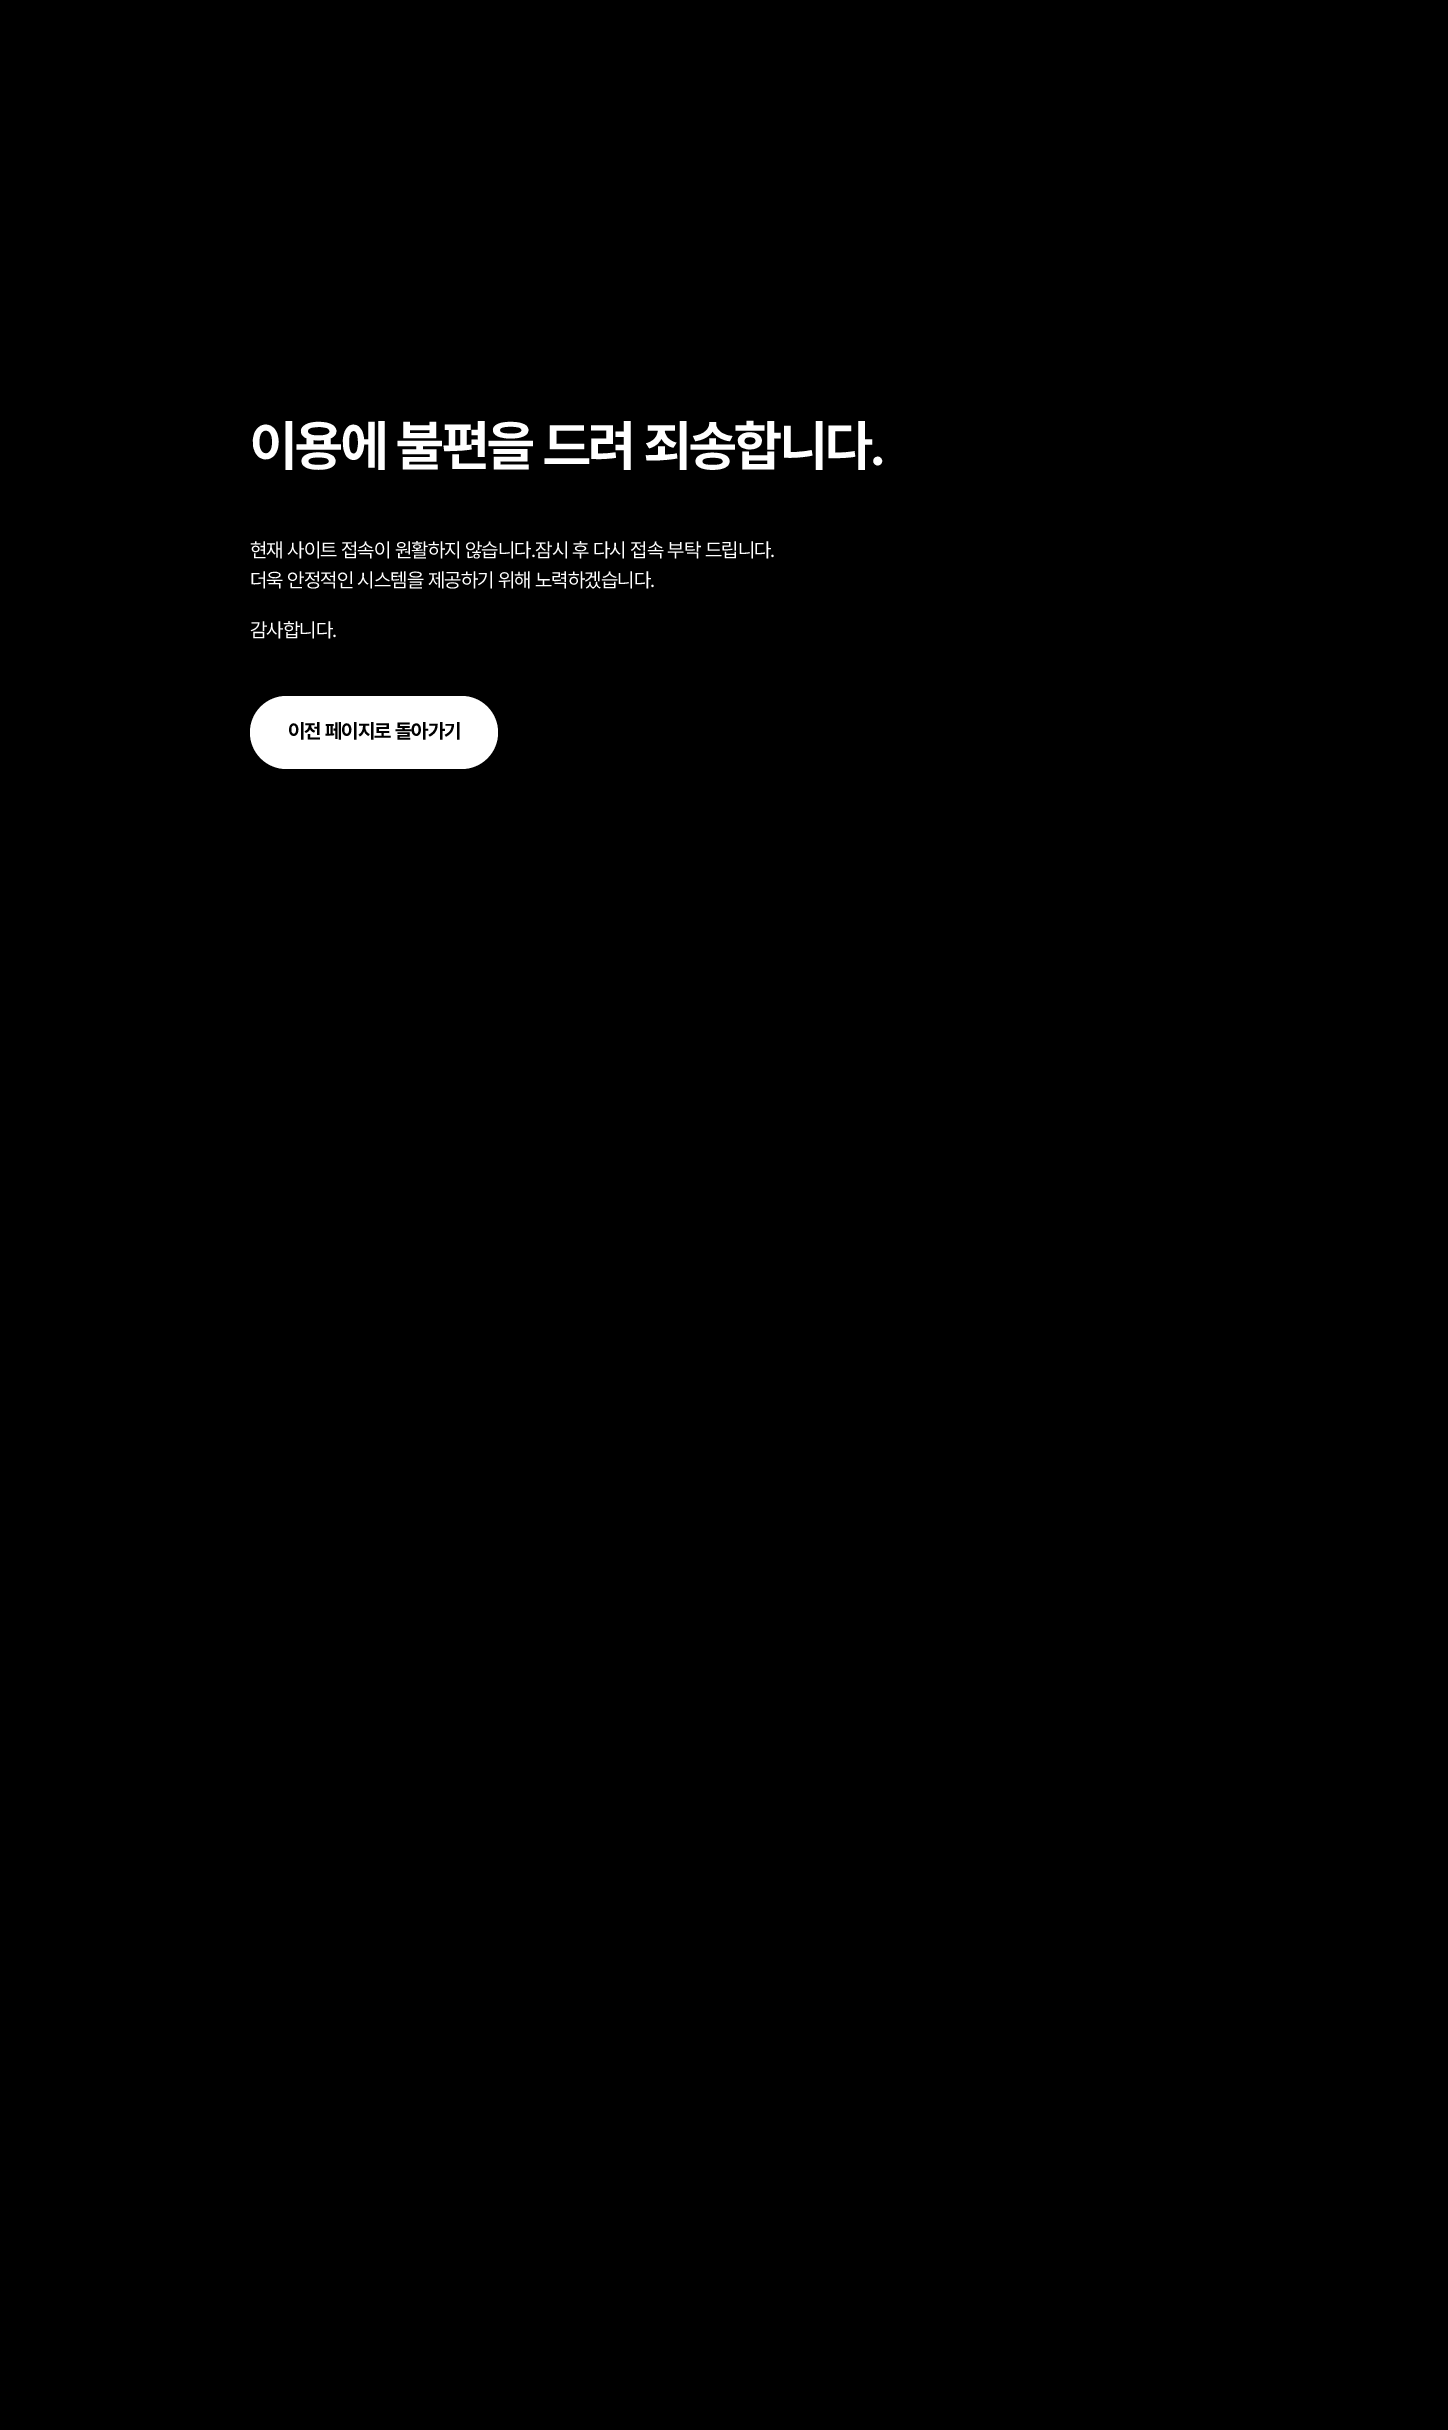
%!PS
<< /PageSize [1448 2430] >> setpagedevice
/m/moveto load def
/f/fill load def
/C { dup -16 bitshift 255 div exch dup -8 bitshift 255 and 255 div exch 255 and 255 div setrgbcolor } def
/F { [ exch dup neg 0 0 3 -1 roll 0 0 ] selectfont } def
/R { rectfill } def
/Q { 5 dict begin { /r /h /w /y /x } { exch def } forall
  x r add y moveto x w add y 2 copy h add r arct x w add y h add x 1 index r arct
  x y h add x y r arct x y 2 copy exch w add exch r arct closepath end } def
0 2430 translate 1 -1 scale
4 setmiterlimit
16#000000 C
0 0 1448 2430 R
/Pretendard-Bold 55 F
16#FFFFFF C
250 465 m -2.25 0 (이용에 불편을 드려 죄송합니다.) ashow
/Pretendard-Regular 20 F
250 557 m -.8 0 (현재 사이트 접속이 원활하지 않습니다.잠시 후 다시 접속 부탁 드립니다.) ashow
250 587 m -.8 0 (더욱 안정적인 시스템을 제공하기 위해 노력하겠습니다.) ashow
250 637 m -.8 0 (감사합니다.) ashow
250 696 248 73 36.5 Q f
/Pretendard-Bold 20 F
16#000000 C
288 738 m -.8 0 (이전 페이지로 돌아가기) ashow
showpage
